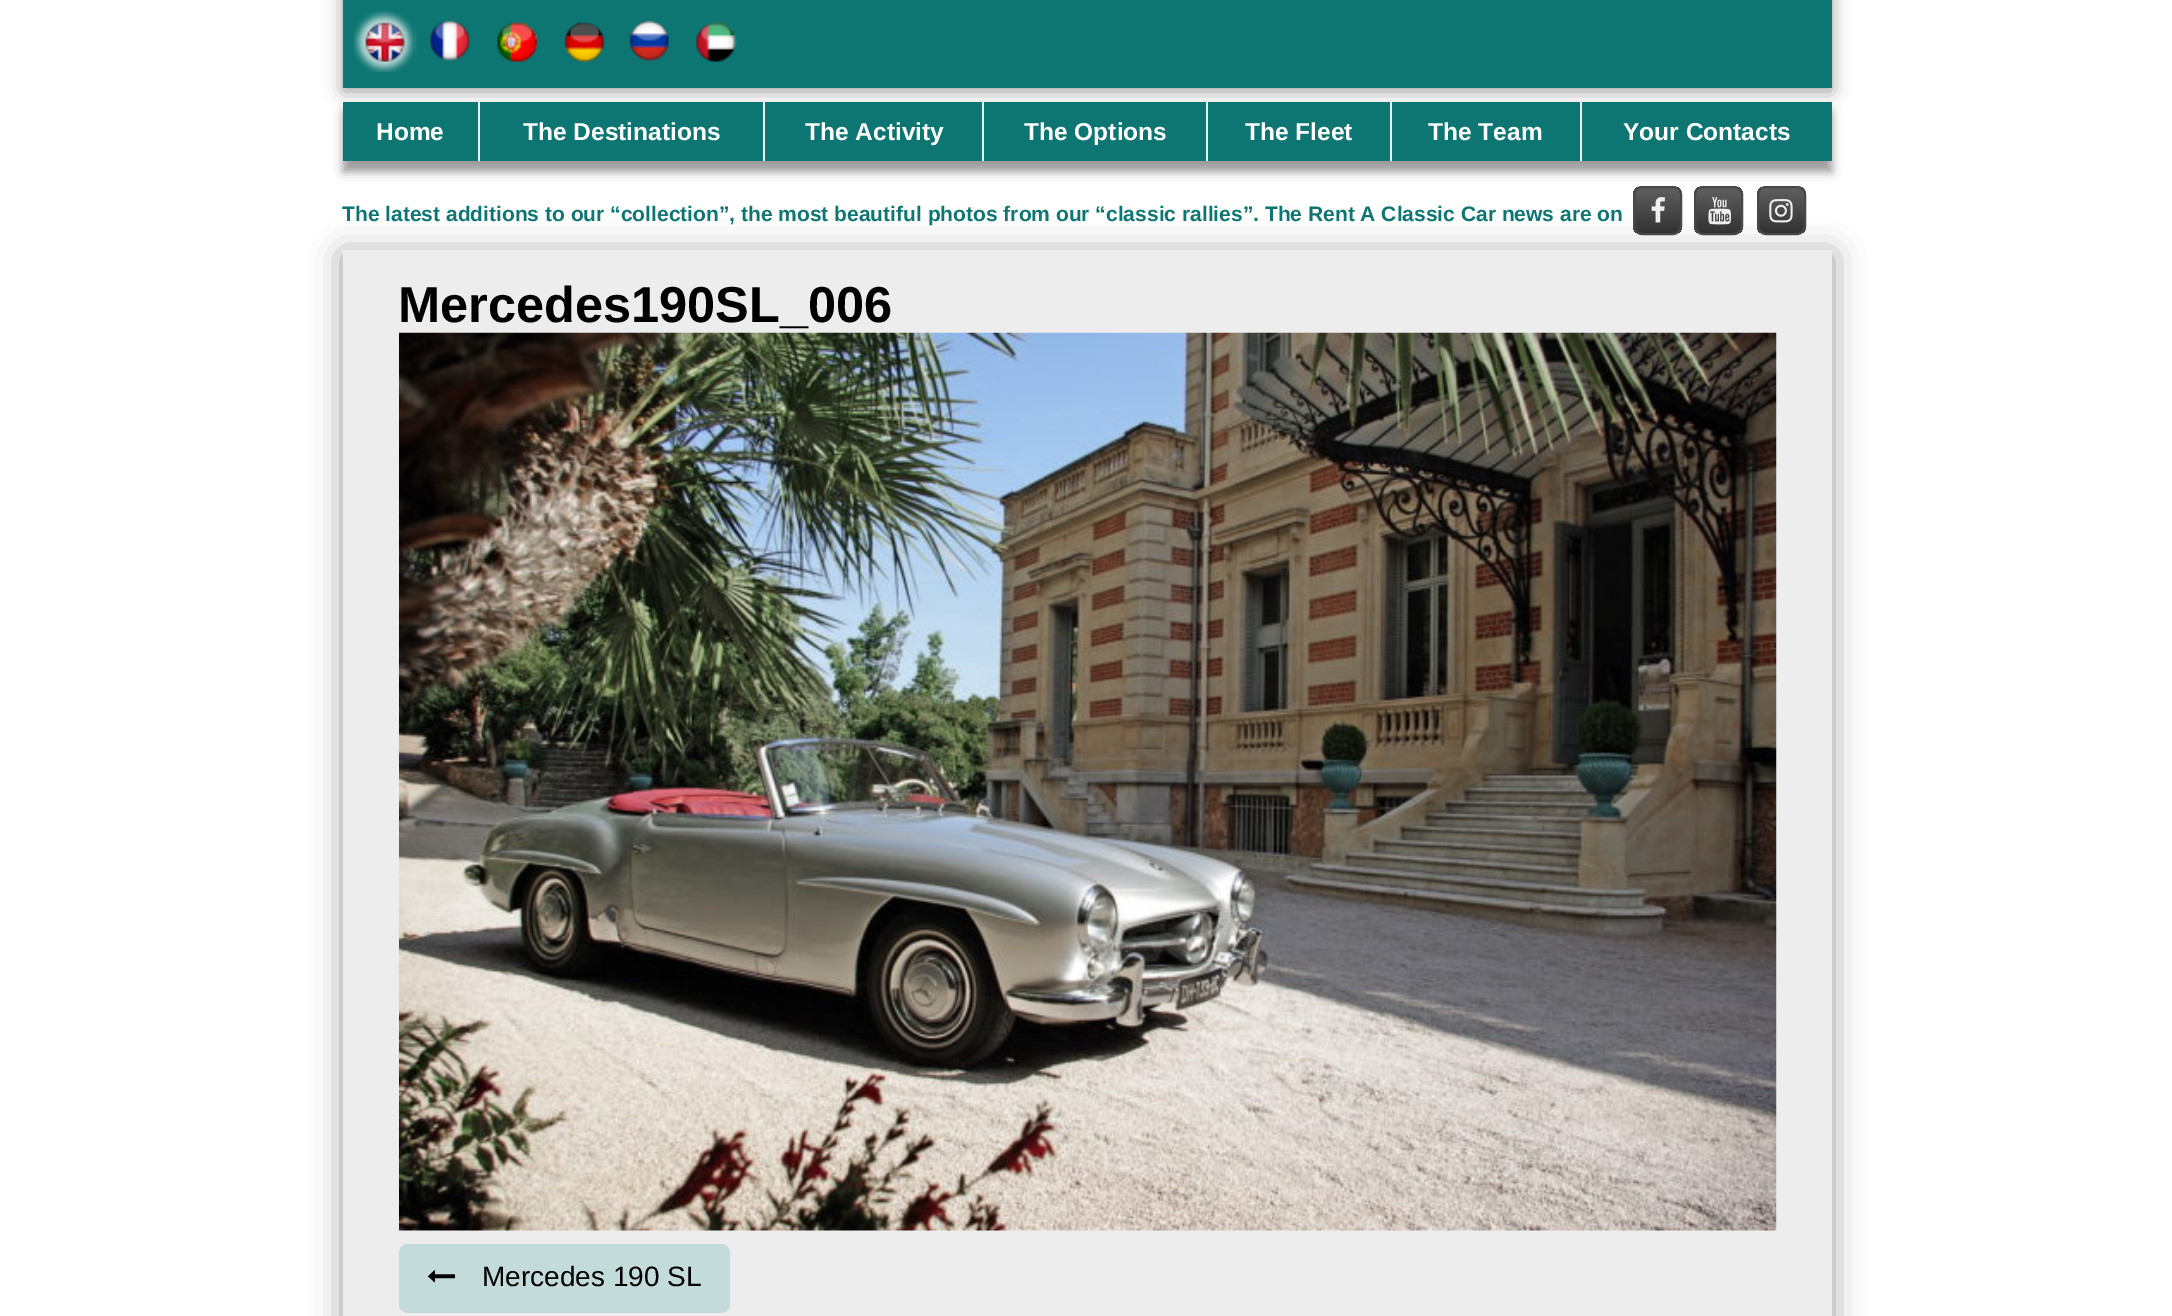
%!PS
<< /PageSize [2172 1316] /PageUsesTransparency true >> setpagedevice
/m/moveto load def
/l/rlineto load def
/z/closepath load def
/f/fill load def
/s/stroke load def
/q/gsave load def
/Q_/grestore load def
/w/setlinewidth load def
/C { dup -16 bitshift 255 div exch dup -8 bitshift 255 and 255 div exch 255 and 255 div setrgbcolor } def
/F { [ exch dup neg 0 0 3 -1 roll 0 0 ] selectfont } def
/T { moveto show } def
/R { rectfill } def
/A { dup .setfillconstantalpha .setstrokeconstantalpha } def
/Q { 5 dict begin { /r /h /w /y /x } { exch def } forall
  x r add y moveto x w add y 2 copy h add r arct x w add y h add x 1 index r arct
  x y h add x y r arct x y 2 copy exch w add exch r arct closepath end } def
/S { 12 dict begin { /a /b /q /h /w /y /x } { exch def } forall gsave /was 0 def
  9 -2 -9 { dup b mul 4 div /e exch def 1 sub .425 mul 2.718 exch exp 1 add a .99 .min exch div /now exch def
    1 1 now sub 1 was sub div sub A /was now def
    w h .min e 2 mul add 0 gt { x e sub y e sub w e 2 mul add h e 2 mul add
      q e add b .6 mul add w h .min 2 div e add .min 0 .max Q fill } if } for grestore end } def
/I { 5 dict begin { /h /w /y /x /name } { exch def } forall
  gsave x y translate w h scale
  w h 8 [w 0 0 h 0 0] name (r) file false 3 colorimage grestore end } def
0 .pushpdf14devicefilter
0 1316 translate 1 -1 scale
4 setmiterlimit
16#FFFFFF C
0 0 2172 1316 R
16#989898 C
343 -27 1489 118 0 9 1 S
16#0D7672 C
343 0 1489 88 R
(1.rgb) 353 11 64 61 I
(2.rgb) 430 20 40 42 I
(3.rgb) 497 22 42 40 I
(4.rgb) 563 22 42 40 I
(5.rgb) 629 20 40 42 I
(6.rgb) 696 21 41 41 I
16#989898 C
343 254 1489 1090 0 16 1 S
q
1633 186 49 49 9 Q clip newpath
q 1633 187 m 49 0 l 0 46 l -49 0 l z clip newpath
<< /ShadingType 2 /ColorSpace /DeviceRGB /Coords [1657 187 1657 233] /Extend [true true] /Function << /FunctionType 2 /Domain [0 1] /C0 [.376 .376 .376] /C1 [.196 .196 .196] /N 1 >> >> shfill Q_
Q_
16#484848 C
2 w
1634 187 47 47 8 Q s
q
1694 186 49 49 9 Q clip newpath
q 1694 187 m 49 0 l 0 46 l -49 0 l z clip newpath
<< /ShadingType 2 /ColorSpace /DeviceRGB /Coords [1719 187 1719 233] /Extend [true true] /Function << /FunctionType 2 /Domain [0 1] /C0 [.376 .376 .376] /C1 [.196 .196 .196] /N 1 >> >> shfill Q_
Q_
1695 187 47 47 8 Q s
q
1757 186 49 49 9 Q clip newpath
q 1757 187 m 49 0 l 0 46 l -49 0 l z clip newpath
<< /ShadingType 2 /ColorSpace /DeviceRGB /Coords [1782 187 1782 233] /Extend [true true] /Function << /FunctionType 2 /Domain [0 1] /C0 [.376 .376 .376] /C1 [.196 .196 .196] /N 1 >> >> shfill Q_
Q_
1758 187 47 47 8 Q s
16#989898 C
343 112 1489 60 0 5 1 S
16#0D7672 C
343 102 1489 59 R
/LiberationSans-Bold 24.5 F
16#FFFFFF C
(Home) 376 140 T
16#EEEEEE C
478 102 2 59 R
16#FFFFFF C
(The Destinations) 523 140 T
16#EEEEEE C
763 102 2 59 R
16#FFFFFF C
(The Activity) 805 140 T
16#EEEEEE C
982 102 2 59 R
16#FFFFFF C
(The Options) 1024 140 T
16#EEEEEE C
1206 102 2 59 R
16#FFFFFF C
(The Fleet) 1245 140 T
16#EEEEEE C
1390 102 2 59 R
16#FFFFFF C
(The Team) 1428 140 T
16#EEEEEE C
1580 102 2 59 R
16#FFFFFF C
(Your Contacts) 1623 140 T
/LiberationSans-Bold 21 F
16#0D7672 C
(The latest additions to our “collection”, the most beautiful photos from our “classic rallies”. The Rent A Classic Car news are on) 342 221 T
(7.rgb) 1651 197 14 26 I
(8.rgb) 1708 197 23 28 I
(9.rgb) 1769 199 24 24 I
16#EDEDEE C
343 250 1489 1066 R
/LiberationSans-Bold 50.5 F
16#000000 C
(Mercedes190SL_006) 398 322 T
(10.rgb) 399 332 1378 899 I
16#C3DBDA C
399 1244 331 69 9 Q f
(11.rgb) 428 1270 27 13 I
/LiberationSans-Regular 28 F
16#000000 C
(Mercedes 190 SL) 482 1286 T
.poppdf14devicefilter showpage
